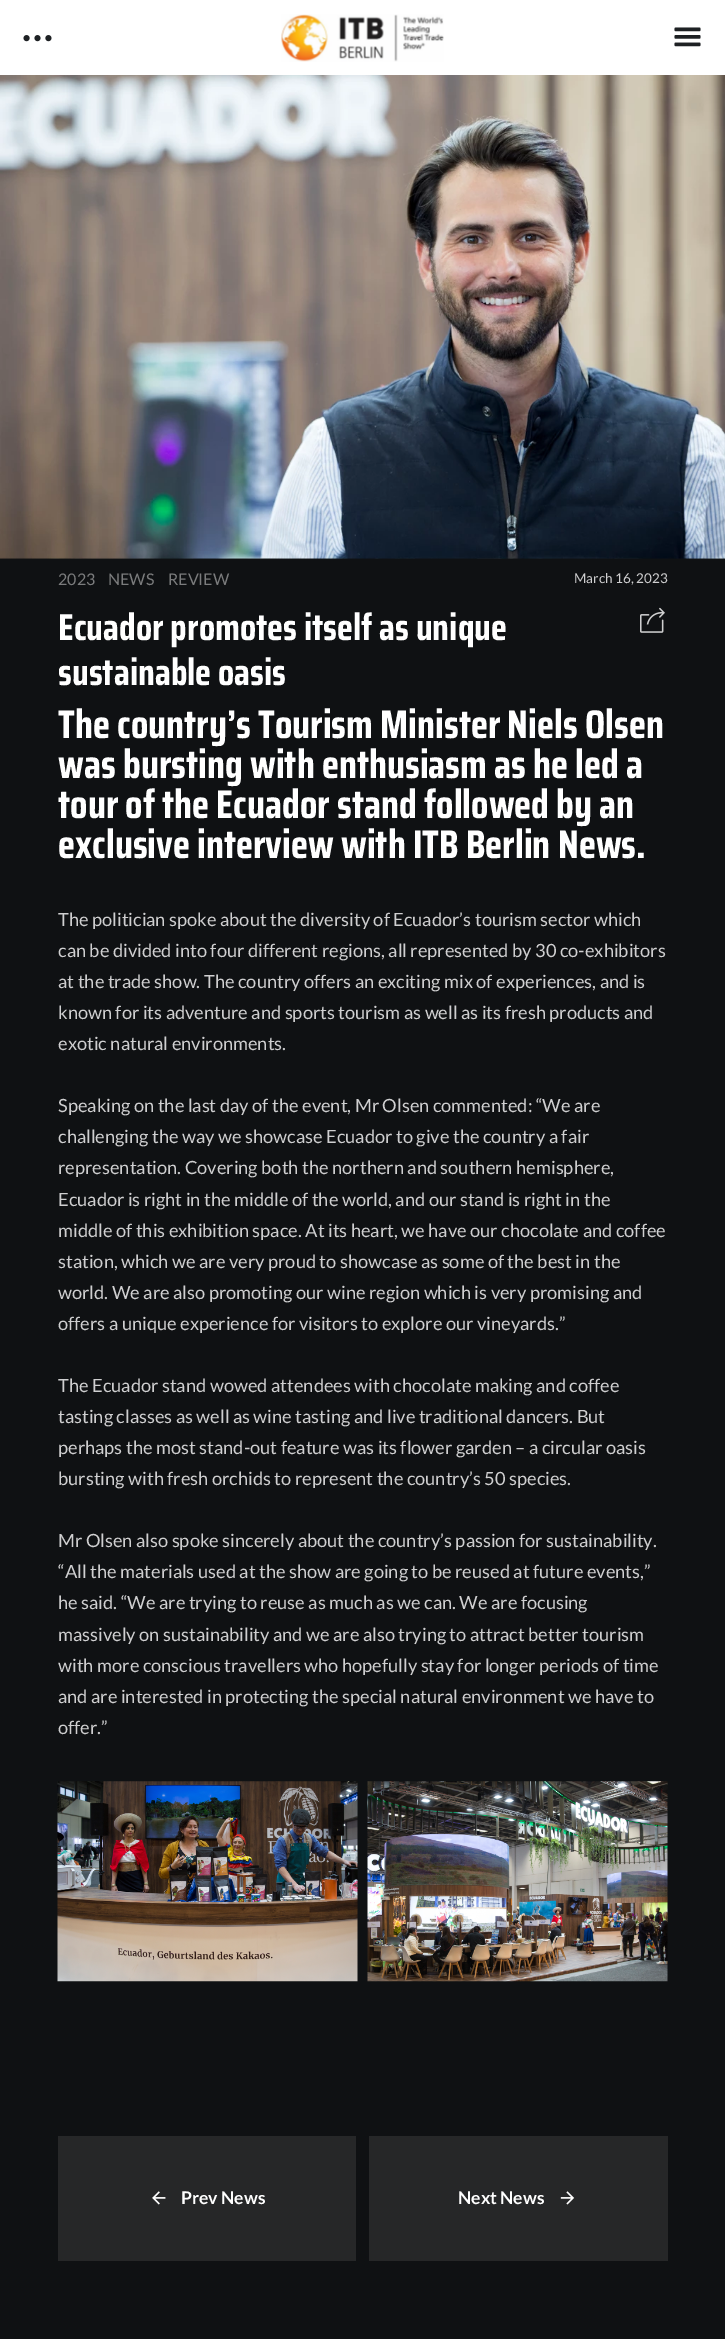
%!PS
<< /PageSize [725 2339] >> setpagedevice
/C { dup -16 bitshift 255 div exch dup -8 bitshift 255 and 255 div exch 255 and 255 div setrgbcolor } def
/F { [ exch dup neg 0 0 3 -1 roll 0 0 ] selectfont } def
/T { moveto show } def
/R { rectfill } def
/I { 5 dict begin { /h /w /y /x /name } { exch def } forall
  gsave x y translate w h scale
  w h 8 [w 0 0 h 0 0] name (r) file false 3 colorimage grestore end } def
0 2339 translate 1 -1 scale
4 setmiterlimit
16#0F1113 C
0 0 725 2339 R
16#FFFFFF C
0 0 725 75 R
(1.rgb) 23 35 29 7 I
(2.rgb) 281 14 163 48 I
(3.rgb) 674 27 27 20 I
(4.rgb) 0 75 725 484 I
/Lato-Regular 16 F
16#7B7C7D C
(2023) 58 585 T
(NEWS) 108 585 T
(REVIEW) 168 585 T
/Lato-Regular 13.5 F
16#CFCFD0 C
(March 16, 2023) 574 583 T
/SairaCondensed-Bold 37.3 F
16#FFFFFF C
(Ecuador promotes itself as unique) 58 640 T
(sustainable oasis) 58 685 T
(5.rgb) 640 607 25 26 I
/SairaCondensed-Bold 40 F
(The country’s Tourism Minister Niels Olsen) 58 738 T
(was bursting with enthusiasm as he led a) 58 778 T
(tour of the Ecuador stand followed by an) 58 818 T
(exclusive interview with ITB Berlin News.) 58 858 T
/Lato-Regular 18.25 F
16#CFCFD0 C
(The politician spoke about the diversity of Ecuador’s tourism sector which) 58 926 T
(can be divided into four different regions, all represented by 30 co-exhibitors) 58 957 T
(at the trade show. The country offers an exciting mix of experiences, and is) 58 988 T
(known for its adventure and sports tourism as well as its fresh products and) 58 1019 T
(exotic natural environments.) 58 1050 T
(Speaking on the last day of the event, Mr Olsen commented: “We are) 58 1112 T
(challenging the way we showcase Ecuador to give the country a fair) 58 1143 T
(representation. Covering both the northern and southern hemisphere,) 58 1174 T
(Ecuador is right in the middle of the world, and our stand is right in the) 58 1206 T
(middle of this exhibition space. At its heart, we have our chocolate and coffee) 58 1237 T
(station, which we are very proud to showcase as some of the best in the) 58 1268 T
(world. We are also promoting our wine region which is very promising and) 58 1299 T
(offers a unique experience for visitors to explore our vineyards.”) 58 1330 T
(The Ecuador stand wowed attendees with chocolate making and coffee) 58 1392 T
(tasting classes as well as wine tasting and live traditional dancers. But) 58 1423 T
(perhaps the most stand-out feature was its flower garden – a circular oasis) 58 1454 T
(bursting with fresh orchids to represent the country’s 50 species.) 58 1485 T
(Mr Olsen also spoke sincerely about the country’s passion for sustainability.) 58 1547 T
(“All the materials used at the show are going to be reused at future events,”) 58 1578 T
(he said. “We are trying to reuse as much as we can. We are focusing) 58 1609 T
(massively on sustainability and we are also trying to attract better tourism) 58 1641 T
(with more conscious travellers who hopefully stay for longer periods of time) 58 1672 T
(and are interested in protecting the special natural environment we have to) 58 1703 T
(offer.”) 58 1734 T
(6.rgb) 57 1781 301 201 I
(7.rgb) 367 1781 301 201 I
16#262728 C
58 2136 298 125 R
(8.rgb) 152 2191 14 14 I
/Lato-Bold 17.5 F
16#FFFFFF C
(Prev News) 181 2204 T
16#262728 C
369 2136 299 125 R
16#FFFFFF C
(Next News) 458 2204 T
(9.rgb) 560 2191 15 14 I
showpage
